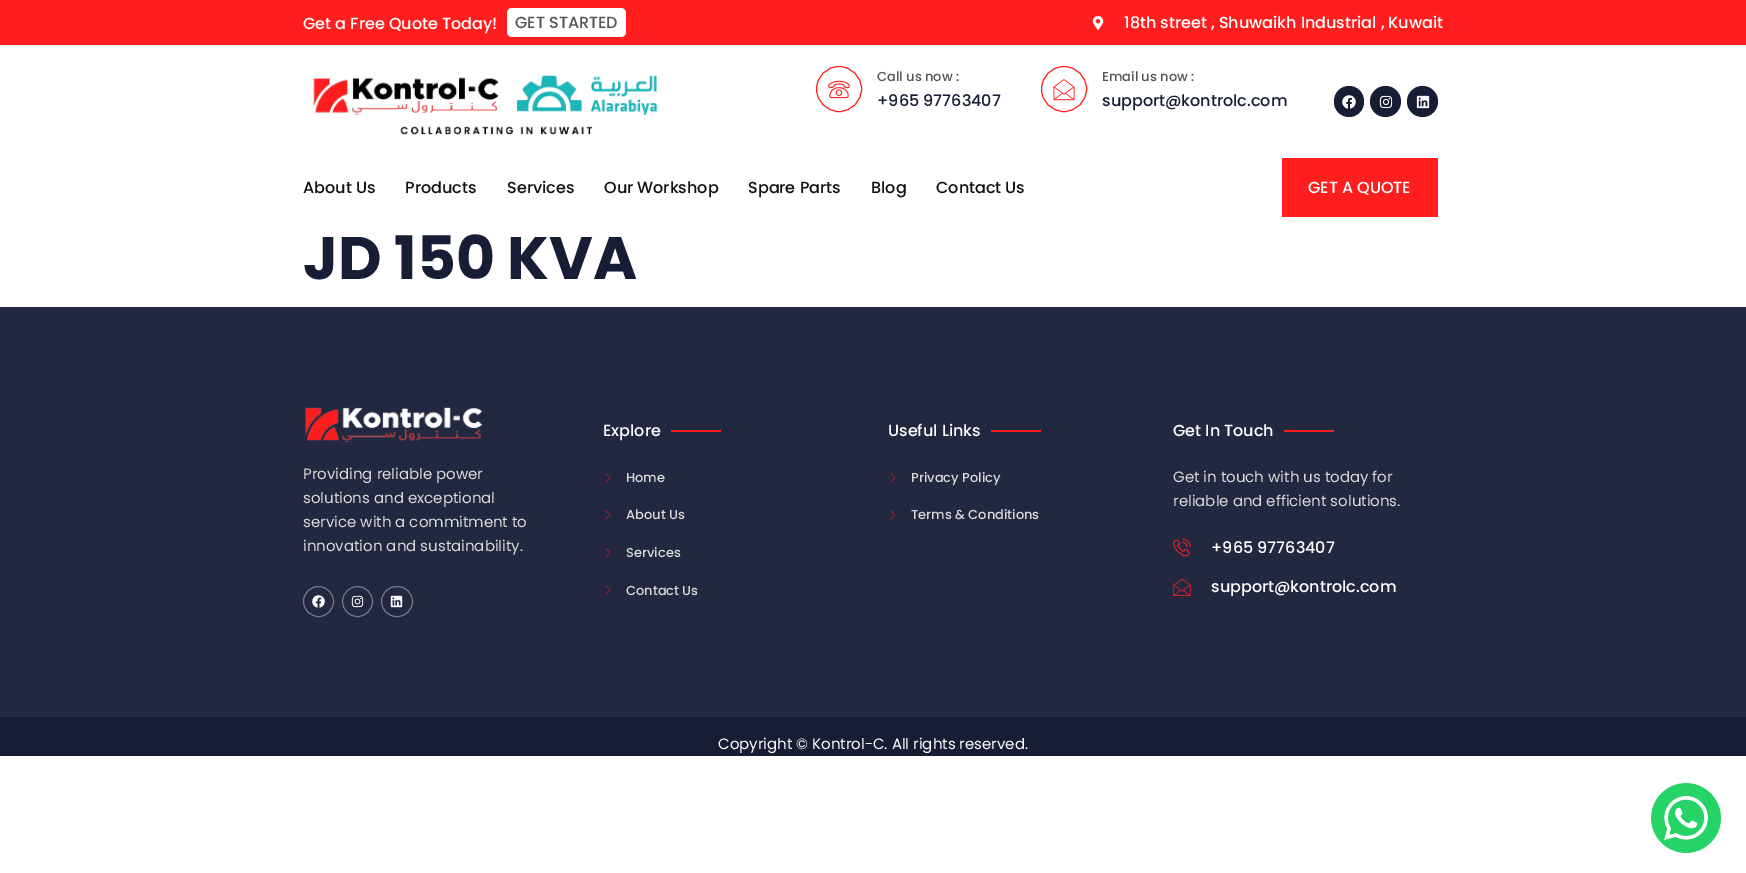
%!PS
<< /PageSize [1746 873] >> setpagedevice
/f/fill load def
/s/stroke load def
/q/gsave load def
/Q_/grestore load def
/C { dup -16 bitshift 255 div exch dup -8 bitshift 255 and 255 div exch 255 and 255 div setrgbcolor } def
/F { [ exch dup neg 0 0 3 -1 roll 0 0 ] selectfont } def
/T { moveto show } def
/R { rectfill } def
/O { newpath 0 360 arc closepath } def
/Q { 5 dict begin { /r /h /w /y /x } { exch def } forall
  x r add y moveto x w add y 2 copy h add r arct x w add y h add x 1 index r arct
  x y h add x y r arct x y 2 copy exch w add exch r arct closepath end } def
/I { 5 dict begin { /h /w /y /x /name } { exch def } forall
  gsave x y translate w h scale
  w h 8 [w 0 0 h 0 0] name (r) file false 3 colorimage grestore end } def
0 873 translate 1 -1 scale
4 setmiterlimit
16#FFFFFF C
0 0 1746 873 R
16#FF1D1E C
0 0 1746 45 R
16#E7F0F7 C
0 45 1746 1 R
/Poppins-Medium 16 F
16#FFFFFF C
(Get a Free Quote Today!) 303 29 T
507 8 119 29 5 Q f
16#555555 C
(GET STARTED) 515 28 T
(1.rgb) 1092 16 12 14 I
16#FFFFFF C
(18th street , Shuwaikh Industrial , Kuwait) 1124 28 T
(2.rgb) 313 75 345 60 I
16#FF1D1E C
839 89 22.5 O s
(3.rgb) 828 80 22 19 I
/Poppins-Medium 13 F
16#555555 C
(Call us now :) 877 81 T
/Poppins-Medium 16 F
16#171D35 C
(+965 97763407) 877 106 T
16#FF1D1E C
1064 89 22.5 O s
(4.rgb) 1053 79 22 22 I
/Poppins-Medium 13 F
16#555555 C
(Email us now :) 1102 81 T
/Poppins-Medium 16 F
16#171D35 C
(support@kontrolc.com) 1102 106 T
1334 86 30 31 15 Q f
(5.rgb) 1342 95 14 14 I
1385.5 101.5 15.5 O f
(6.rgb) 1379 95 14 14 I
1422.5 101.5 15.5 O f
(7.rgb) 1416 95 14 14 I
16#111111 C
(About Us) 303 193 T
(Products) 405 193 T
(Services) 507 193 T
(Our Workshop) 604 193 T
(Spare Parts) 748 193 T
(Blog) 871 193 T
(Contact Us) 936 193 T
16#FF1D1E C
1282 158 156 59 R
16#FFFFFF C
(GET A QUOTE) 1308 193 T
/Poppins-Bold 60 F
16#171D35 C
(JD 150 KVA) 303 279 T
16#21283F C
0 307 1746 410 R
(8.rgb) 305 407 178 35 I
/Poppins-Regular 15 F
16#D9D9D9 C
(Providing reliable power) 303 479 T
(solutions and exceptional) 303 503 T
(service with a commitment to) 303 527 T
(innovation and sustainability.) 303 551 T
16#777982 C
318.5 601.5 15 O s
(9.rgb) 312 595 13 13 I
357.5 601.5 15 O s
(10.rgb) 351 595 13 13 I
381.5 586.5 31 30 15 Q s
(11.rgb) 390 595 13 13 I
(12.rgb) 1651 783 70 70 I
/Poppins-Medium 16 F
16#FFFFFF C
(Explore) 603 436 T
16#FF1D1E C
671 430 50 2 R
(13.rgb) 605 473 6 10 I
/Poppins-Medium 13 F
16#D9D9D9 C
(Home) 626 482 T
(13.rgb) 605 510 6 10 I
(About Us) 626 519 T
(13.rgb) 605 548 6 10 I
(Services) 626 557 T
(13.rgb) 605 585 6 10 I
(Contact Us) 626 595 T
/Poppins-Medium 16 F
16#FFFFFF C
(Useful Links) 888 436 T
16#FF1D1E C
991 430 50 2 R
(13.rgb) 890 473 6 10 I
/Poppins-Medium 13 F
16#D9D9D9 C
(Privacy Policy) 911 482 T
(13.rgb) 890 510 6 10 I
(Terms & Conditions) 911 519 T
/Poppins-Medium 16 F
16#FFFFFF C
(Get In Touch) 1173 436 T
16#FF1D1E C
1284 430 50 2 R
/Poppins-Regular 15 F
16#D9D9D9 C
(Get in touch with us today for) 1173 482 T
(reliable and efficient solutions.) 1173 506 T
(14.rgb) 1173 538 18 19 I
/Poppins-Medium 16 F
16#FFFFFF C
(+965 97763407) 1211 553 T
(15.rgb) 1173 578 18 18 I
q
1173 577 270 19 rectclip
(support@kontrolc.com) 1211 592 T
Q_
16#171D35 C
0 717 1746 39 R
/Poppins-Regular 15 F
16#FFFFFF C
(Copyright © Kontrol-C. All rights reserved.) 718 749 T
showpage
